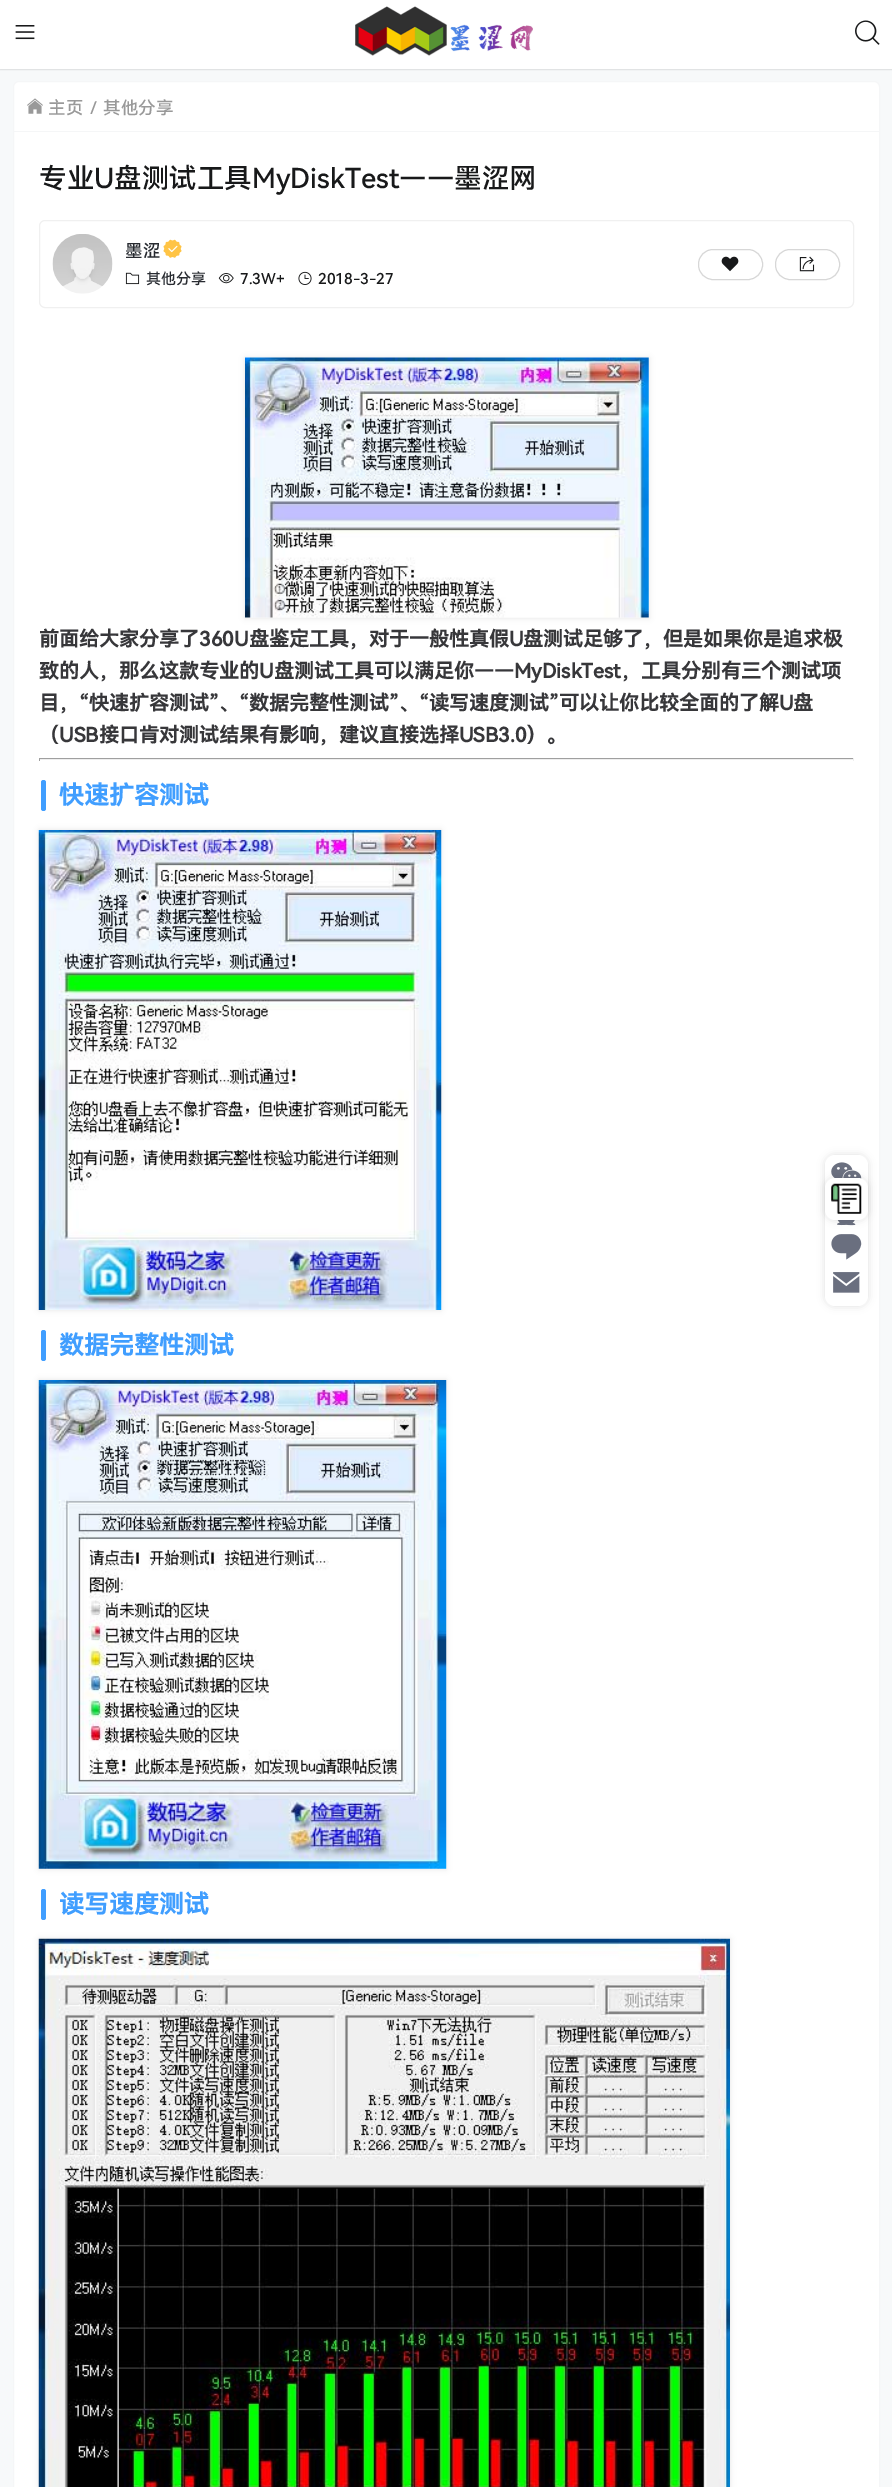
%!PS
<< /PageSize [892 2487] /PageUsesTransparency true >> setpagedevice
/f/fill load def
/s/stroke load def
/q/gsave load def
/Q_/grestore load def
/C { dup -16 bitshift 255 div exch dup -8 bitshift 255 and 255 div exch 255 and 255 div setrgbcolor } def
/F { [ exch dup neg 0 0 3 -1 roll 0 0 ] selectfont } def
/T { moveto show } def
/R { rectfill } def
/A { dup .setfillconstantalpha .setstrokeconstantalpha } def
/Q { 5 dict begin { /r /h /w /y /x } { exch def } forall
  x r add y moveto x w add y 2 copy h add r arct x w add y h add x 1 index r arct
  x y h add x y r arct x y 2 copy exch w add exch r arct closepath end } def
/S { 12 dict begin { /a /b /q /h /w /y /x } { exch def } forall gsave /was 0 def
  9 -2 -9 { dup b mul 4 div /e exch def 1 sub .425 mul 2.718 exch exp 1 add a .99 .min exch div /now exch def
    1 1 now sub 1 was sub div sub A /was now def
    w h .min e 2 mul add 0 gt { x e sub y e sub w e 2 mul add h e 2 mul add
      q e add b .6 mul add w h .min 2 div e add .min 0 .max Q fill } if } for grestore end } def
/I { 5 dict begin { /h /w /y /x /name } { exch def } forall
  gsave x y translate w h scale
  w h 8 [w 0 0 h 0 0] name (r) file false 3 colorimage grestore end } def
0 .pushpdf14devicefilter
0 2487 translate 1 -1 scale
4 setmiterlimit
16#F7F9FA C
0 0 892 2487 R
16#000000 C
0 0 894 70 0 .5 .1 S
16#FFFFFF C
0 0 892 69 R
(1.rgb) 15 25 20 15 I
(2.rgb) 355 6 178 50 I
(3.rgb) 855 20 25 25 I
13.5 81.5 866 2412 5.5 Q q f Q_
16#F5F6F7 C
s
16#000000 C
825 1155 43 151 10 4 .12 S
16#FFFFFF C
825 1155 43 151 10 Q f
(4.rgb) 831 1162 31 17 I
(5.rgb) 834 1219 25 7 I
(6.rgb) 831 1234 31 26 I
(7.rgb) 833 1272 27 21 I
16#000000 C
825 1178 43 42 10 4 .12 S
16#FFFFFF C
825 1178 43 42 10 Q f
(8.rgb) 831 1183 31 31 I
16#F5F6F7 C
14 131 865 1 R
(9.rgb) 27 98 16 16 I
/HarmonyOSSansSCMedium-Medium 17.5 F
16#999999 C
(主页) 48 114 T
(/) 90 114 T
(其他分享) 103 114 T
/HarmonyOSSansSCMedium-Medium 27.5 F
16#18191A C
(专业U盘测试工具MyDiskTest——墨涩网) 39 188 T
16#F0F0F0 C
39.5 220.5 814 87 5.5 Q s
(10.rgb) 52 234 61 60 I
/HarmonyOSSansSCMedium-Medium 17.5 F
16#282B31 C
(墨涩) 125 257 T
(11.rgb) 163 239 19 19 I
(12.rgb) 125 272 15 13 I
/HarmonyOSSansSCMedium-Medium 15 F
(其他分享) 146 284 T
(13.rgb) 218 273 16 11 I
16#18191A C
(7.3W+) 240 284 T
(14.rgb) 298 271 14 14 I
(2018-3-27) 318 284 T
16#D7D7D7 C
698.5 249.5 64 30 14.5 Q s
(15.rgb) 721 256 18 16 I
775.5 249.5 64 30 14.5 Q s
(16.rgb) 799 256 16 16 I
16#000000 C
245 358 404 260 0 3 .1 S
(17.rgb) 245 357 404 261 I
/HarmonyOSSansSCMedium-Bold 20 F
16#37373A C
(前面给大家分享了360U盘鉴定工具，对于一般性真假U盘测试足够了，但是如果你是追求极) 39 646 T
(致的人，那么这款专业的U盘测试工具可以满足你——MyDiskTest，工具分别有三个测试项) 39 678 T
(目，“快速扩容测试”、“数据完整性测试”、“读写速度测试”可以让你比较全面的了解U盘) 39 710 T
(（USB接口肯对测试结果有影响，建议直接选择USB3.0）。) 39 742 T
16#9F9F9F C
39 758 815 1 R
16#EEEEEE C
853 758 1 3 R
39 759 815 1 R
16#9F9F9F C
39 758 1 3 R
16#409EFF C
41 780 5 31 2.5 Q f
/HarmonyOSSansSCMedium-Bold 25 F
(快速扩容测试) 59 804 T
16#000000 C
39 830 402 480 0 3 .1 S
(18.rgb) 38 830 404 480 I
16#409EFF C
41 1330 5 31 2.5 Q f
(数据完整性测试) 59 1354 T
16#000000 C
39 1380 407 489 0 3 .1 S
(19.rgb) 38 1380 409 489 I
16#409EFF C
41 1889 5 31 2.5 Q f
(读写速度测试) 59 1913 T
16#000000 C
39 1939 691 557 0 3 .1 S
(20.rgb) 38 1938 692 549 I
.poppdf14devicefilter showpage
